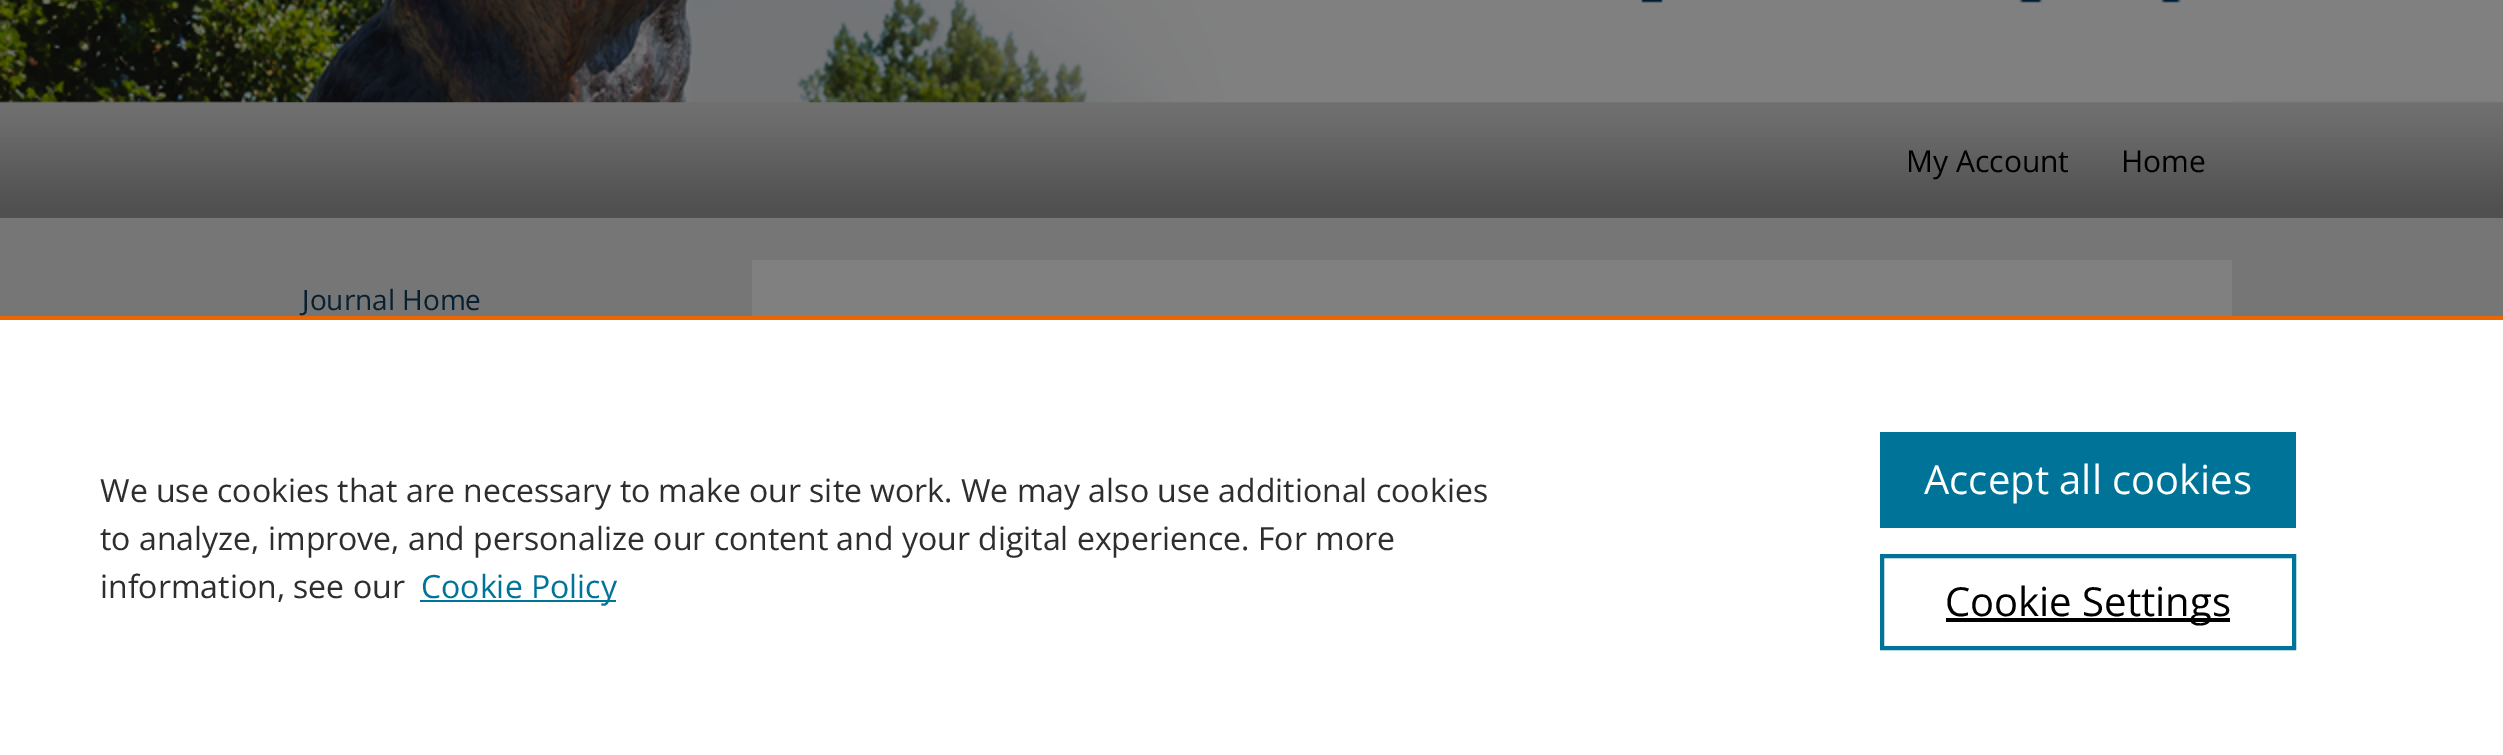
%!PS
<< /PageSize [2503 755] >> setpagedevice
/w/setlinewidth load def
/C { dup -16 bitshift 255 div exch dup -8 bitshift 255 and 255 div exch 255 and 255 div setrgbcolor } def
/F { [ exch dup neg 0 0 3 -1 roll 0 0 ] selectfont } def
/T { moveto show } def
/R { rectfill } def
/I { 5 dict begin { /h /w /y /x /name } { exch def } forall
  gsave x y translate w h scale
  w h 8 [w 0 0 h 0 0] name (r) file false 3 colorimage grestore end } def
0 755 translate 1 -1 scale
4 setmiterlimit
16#767676 C
0 0 2503 755 R
(1.rgb) 0 0 2503 218 I
16#808080 C
2181 51 51 51 R
(2.rgb) 272 0 1909 102 I
/OpenSans-Regular 30 F
16#000000 C
(My Account) 1906 172 T
(Home) 2121 172 T
16#808080 C
752 260 1480 56 R
/OpenSans-Regular 28 F
16#072031 C
(Journal Home) 302 310 T
16#FFFFFF C
0 320 2503 435 R
16#EB6500 C
0 316 2503 4 R
/OpenSans-Regular 32 F
16#2E2E2E C
(We use cookies that are necessary to make our site work. We may also use additional cookies) 100 502 T
(to analyze, improve, and personalize our content and your digital experience. For more) 100 550 T
(information, see our) 100 598 T
16#007398 C
420 600 196 2 R
(Cookie Policy) 421 598 T
1880 432 416 96 R
/OpenSans-Regular 40 F
16#FFFFFF C
(Accept all cookies) 1924 494 T
16#007398 C
4 w
1882 556 412 92 rectstroke
16#000000 C
1946 618 284 4 R
(Cookie Settings) 1945 616 T
showpage
